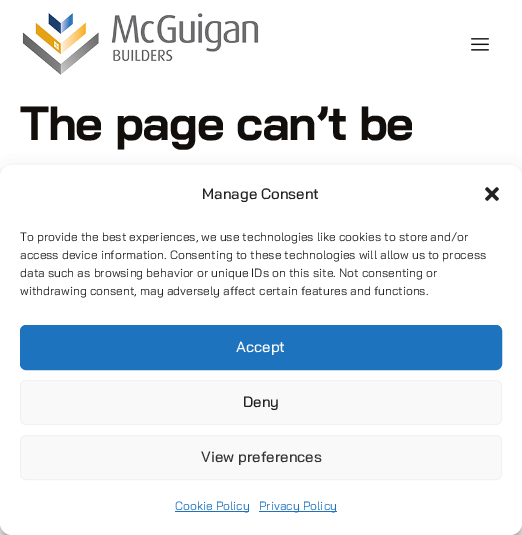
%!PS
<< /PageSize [522 535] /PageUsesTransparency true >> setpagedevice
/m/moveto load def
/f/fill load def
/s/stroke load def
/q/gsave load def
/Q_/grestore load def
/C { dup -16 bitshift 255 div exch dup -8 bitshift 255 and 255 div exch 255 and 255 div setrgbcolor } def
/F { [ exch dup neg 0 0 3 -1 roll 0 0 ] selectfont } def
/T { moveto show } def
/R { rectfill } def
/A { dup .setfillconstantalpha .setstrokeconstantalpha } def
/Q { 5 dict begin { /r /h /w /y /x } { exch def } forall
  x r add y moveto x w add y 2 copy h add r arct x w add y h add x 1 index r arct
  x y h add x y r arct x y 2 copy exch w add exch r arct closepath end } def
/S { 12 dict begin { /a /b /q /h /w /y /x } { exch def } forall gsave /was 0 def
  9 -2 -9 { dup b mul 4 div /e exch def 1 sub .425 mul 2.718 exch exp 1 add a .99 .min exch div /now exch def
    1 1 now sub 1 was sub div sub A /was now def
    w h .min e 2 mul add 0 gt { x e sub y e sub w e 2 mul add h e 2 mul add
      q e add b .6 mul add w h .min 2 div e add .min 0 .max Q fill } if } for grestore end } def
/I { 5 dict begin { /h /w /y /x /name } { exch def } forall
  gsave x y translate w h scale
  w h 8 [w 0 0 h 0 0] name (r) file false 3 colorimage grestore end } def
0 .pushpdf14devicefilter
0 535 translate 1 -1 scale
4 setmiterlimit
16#FFFFFF C
0 0 522 535 R
(1.rgb) 22 13 237 62 I
(2.rgb) 471 38 18 13 I
/BaiJamjuree-Bold 48 F
16#120E0B C
20 140 m -1.25 0 (The page can’t be) ashow
16#000000 C
0 171 522 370 12 3 .23 S
0 175 522 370 12 10 .19 S
16#FFFFFF C
0 165 522 370 12 Q f
/BaiJamjuree-Medium 15 F
16#222222 C
(Manage Consent) 202 199 T
(3.rgb) 485 187 14 14 I
/BaiJamjuree-Regular 12 F
(To provide the best experiences, we use technologies like cookies to store and/or) 20 241 T
(access device information. Consenting to these technologies will allow us to process) 20 259 T
(data such as browsing behavior or unique IDs on this site. Not consenting or) 20 277 T
(withdrawing consent, may adversely affect certain features and functions.) 20 295 T
16#1E73BE C
20.5 325.5 481 44 5.5 Q q f Q_
s
/BaiJamjuree-Medium 15 F
16#FFFFFF C
(Accept) 236 352 T
16#F9F9F9 C
20.5 380.5 481 44 5.5 Q q f Q_
16#F2F2F2 C
s
16#222222 C
(Deny) 243 407 T
16#F9F9F9 C
20.5 435.5 481 44 5.5 Q q f Q_
16#F2F2F2 C
s
16#333333 C
(View preferences) 201 462 T
16#1E73BE C
175 511 74 1 R
/BaiJamjuree-Regular 12 F
(Cookie Policy) 175 510 T
259 511 78 1 R
(Privacy Policy) 259 510 T
.poppdf14devicefilter showpage
